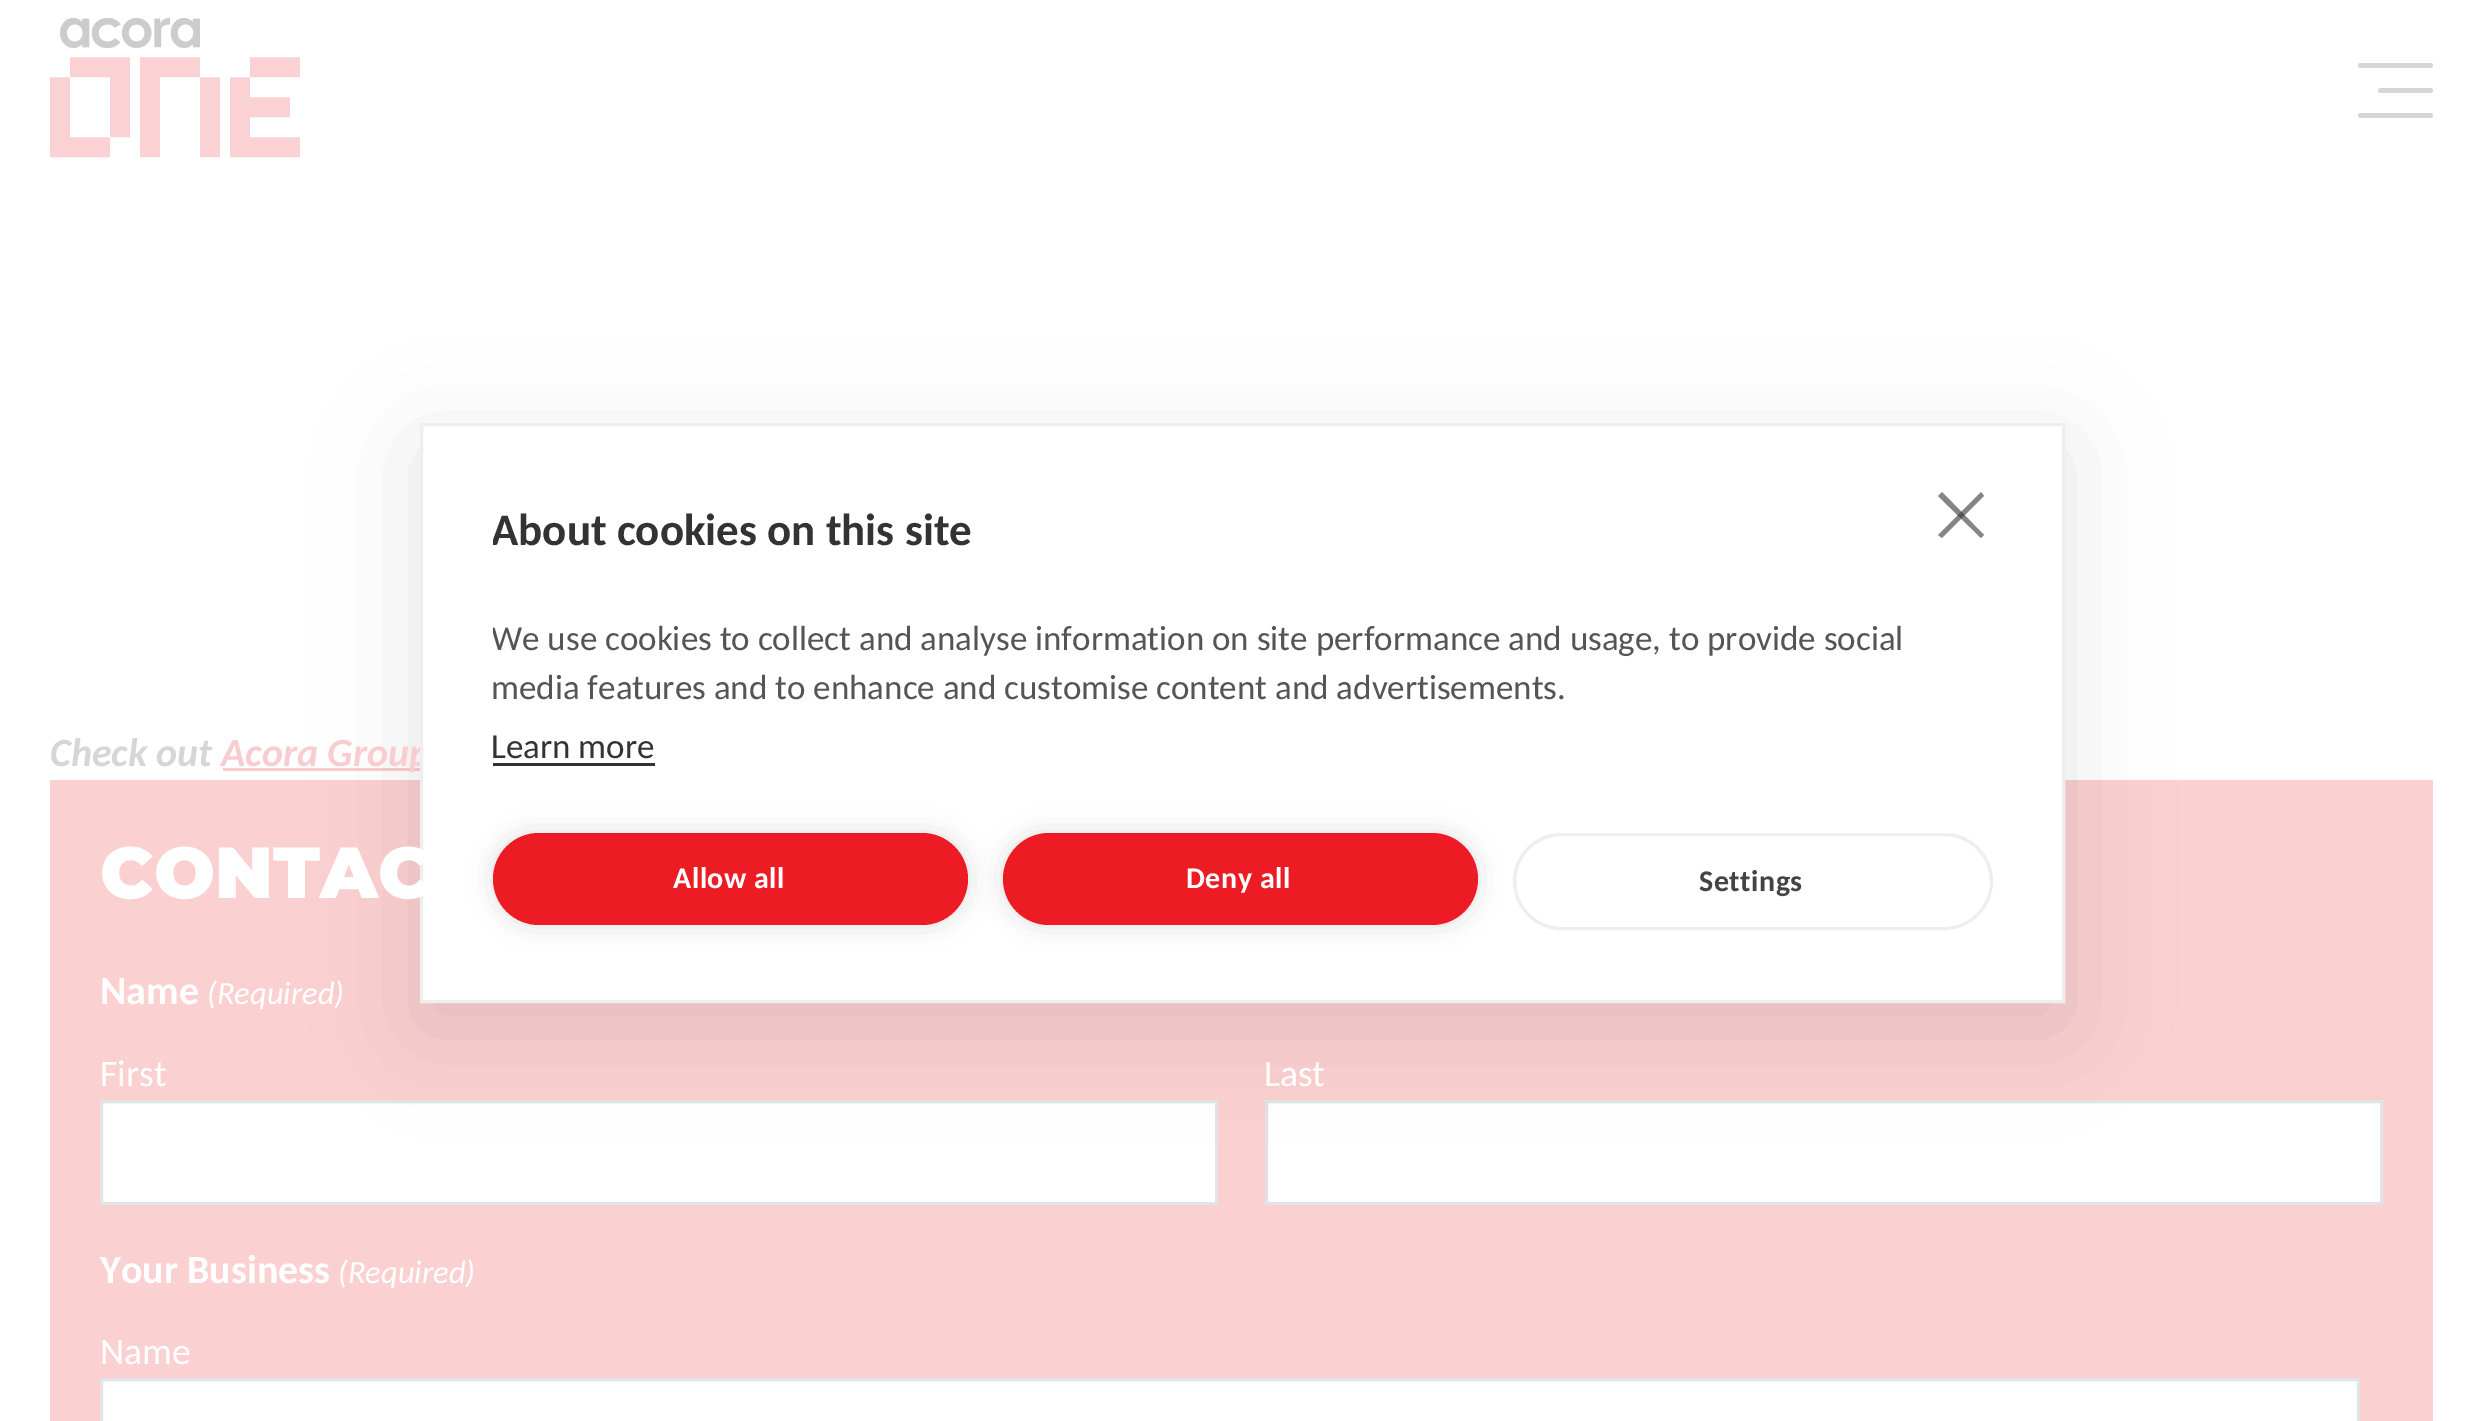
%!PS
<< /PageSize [2481 1421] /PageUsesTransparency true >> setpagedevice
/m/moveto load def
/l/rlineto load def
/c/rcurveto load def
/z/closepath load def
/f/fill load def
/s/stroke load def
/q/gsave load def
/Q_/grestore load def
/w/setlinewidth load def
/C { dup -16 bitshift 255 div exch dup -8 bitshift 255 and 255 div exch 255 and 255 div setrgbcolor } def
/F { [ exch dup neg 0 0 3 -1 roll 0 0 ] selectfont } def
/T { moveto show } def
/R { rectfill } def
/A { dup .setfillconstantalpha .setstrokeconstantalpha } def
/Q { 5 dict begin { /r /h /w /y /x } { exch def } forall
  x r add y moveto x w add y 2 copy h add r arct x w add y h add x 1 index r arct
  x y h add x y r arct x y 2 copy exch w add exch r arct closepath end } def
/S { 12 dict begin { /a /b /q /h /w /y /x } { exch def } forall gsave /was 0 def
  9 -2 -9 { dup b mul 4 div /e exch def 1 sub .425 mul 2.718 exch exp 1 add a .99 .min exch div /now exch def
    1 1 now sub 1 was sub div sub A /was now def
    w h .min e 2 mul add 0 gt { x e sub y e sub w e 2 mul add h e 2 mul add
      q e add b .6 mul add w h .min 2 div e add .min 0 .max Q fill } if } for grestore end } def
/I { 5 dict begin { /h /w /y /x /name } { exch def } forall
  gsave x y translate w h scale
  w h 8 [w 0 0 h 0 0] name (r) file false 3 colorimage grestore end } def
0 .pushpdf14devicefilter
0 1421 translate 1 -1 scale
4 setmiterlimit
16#FFFFFF C
0 0 2481 1421 R
16#F9CDD0 C
223 768 197 3 R
16#FBD0D1 C
50 780 2383 641 R
16#FFFFFF C
101.5 1101.5 m 1115 0 l 0 102 l -1115 0 l z q f Q_
16#E1E3E6 C
3 w
s
16#FFFFFF C
1266.5 1101.5 m 1115 0 l 0 102 l -1115 0 l z q f Q_
16#E1E3E6 C
s
16#000000 C
420 448 1645 580 0 50 .1 S
/Carlito-BoldItalic 40 F
16#F9CDD0 C
(Acora Group) 221 766 T
16#FFFFFF C
421.5 424.5 m 1642 0 l 0 577 l -1642 0 l z q f Q_
16#EEEEEE C
s
q
493 495 1500 338 rectclip
/Carlito-Bold 45 F
16#333333 C
(About cookies on this site) 491 545 T
/Carlito-Regular 35 F
16#555555 C
(We use cookies to collect and analyse information on site performance and usage, to provide social) 491 650 T
Q_
/Carlito-Regular 35 F
16#555555 C
(media features and to enhance and customise content and advertisements.) 491 699 T
16#333333 C
(Learn more) 491 758 T
493 763 162 3 R
16#858585 C
1938 535 m 43 -43 l 3 4 l -42 42 l z f
0.6 A
16#333333 C
1942 492 m 42 43 l -3 3 l -43 -42 l z f
q
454 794 m 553 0 l 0 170 l -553 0 l z 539 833 m 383 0 l 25.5 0 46 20.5 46 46 c 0 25.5 -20.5 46 -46 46 c -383 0 l -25.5 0 -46 -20.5 -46 -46 c 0 -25.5 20.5 -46 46 -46 c z eoclip newpath
1 A
16#000000 C
493 833 475 92 46 12.5 .12 S
Q_
1 A
16#ED1C24 C
493 833 475 92 46 Q f
/Carlito-Bold 30 F
16#FFFFFF C
673 888 m .5 0 (Allow all) ashow
q
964 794 m 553 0 l 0 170 l -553 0 l z 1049 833 m 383 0 l 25.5 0 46 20.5 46 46 c 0 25.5 -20.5 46 -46 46 c -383 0 l -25.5 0 -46 -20.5 -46 -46 c 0 -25.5 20.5 -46 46 -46 c z eoclip newpath
16#000000 C
1003 833 475 92 46 12.5 .12 S
Q_
16#ED1C24 C
1003 833 475 92 46 Q f
16#FFFFFF C
1186 888 m .5 0 (Deny all) ashow
16#EEEEEE C
1514.5 834.5 477 94 47 Q s
16#444444 C
1699 891 m .5 0 (Settings) ashow
(1.rgb) 50 18 250 140 I
16#D6D6D6 C
2358 63 75 5 2.5 Q f
2378 88 55 5 2.5 Q f
2358 113 75 5 2.5 Q f
/Carlito-BoldItalic 40 F
(Check out) 50 766 T
/Montserrat-Thin 72 F
16#FFFFFF C
(CONTAC) 100 898 T
/Carlito-Bold 40 F
(Name) 100 1004 T
/Carlito-Italic 32.5 F
(\(Required\)) 207 1004 T
/Carlito-Regular 37.5 F
(First) 100 1086 T
(Last) 1264 1086 T
/Carlito-Bold 40 F
(Your Business) 100 1283 T
/Carlito-Italic 32.5 F
(\(Required\)) 338 1283 T
/Carlito-Regular 37.5 F
(Name) 100 1364 T
101.5 1379.5 m 2257 0 l 0 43 l -2257 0 l z q f Q_
16#E1E3E6 C
s
.poppdf14devicefilter showpage
